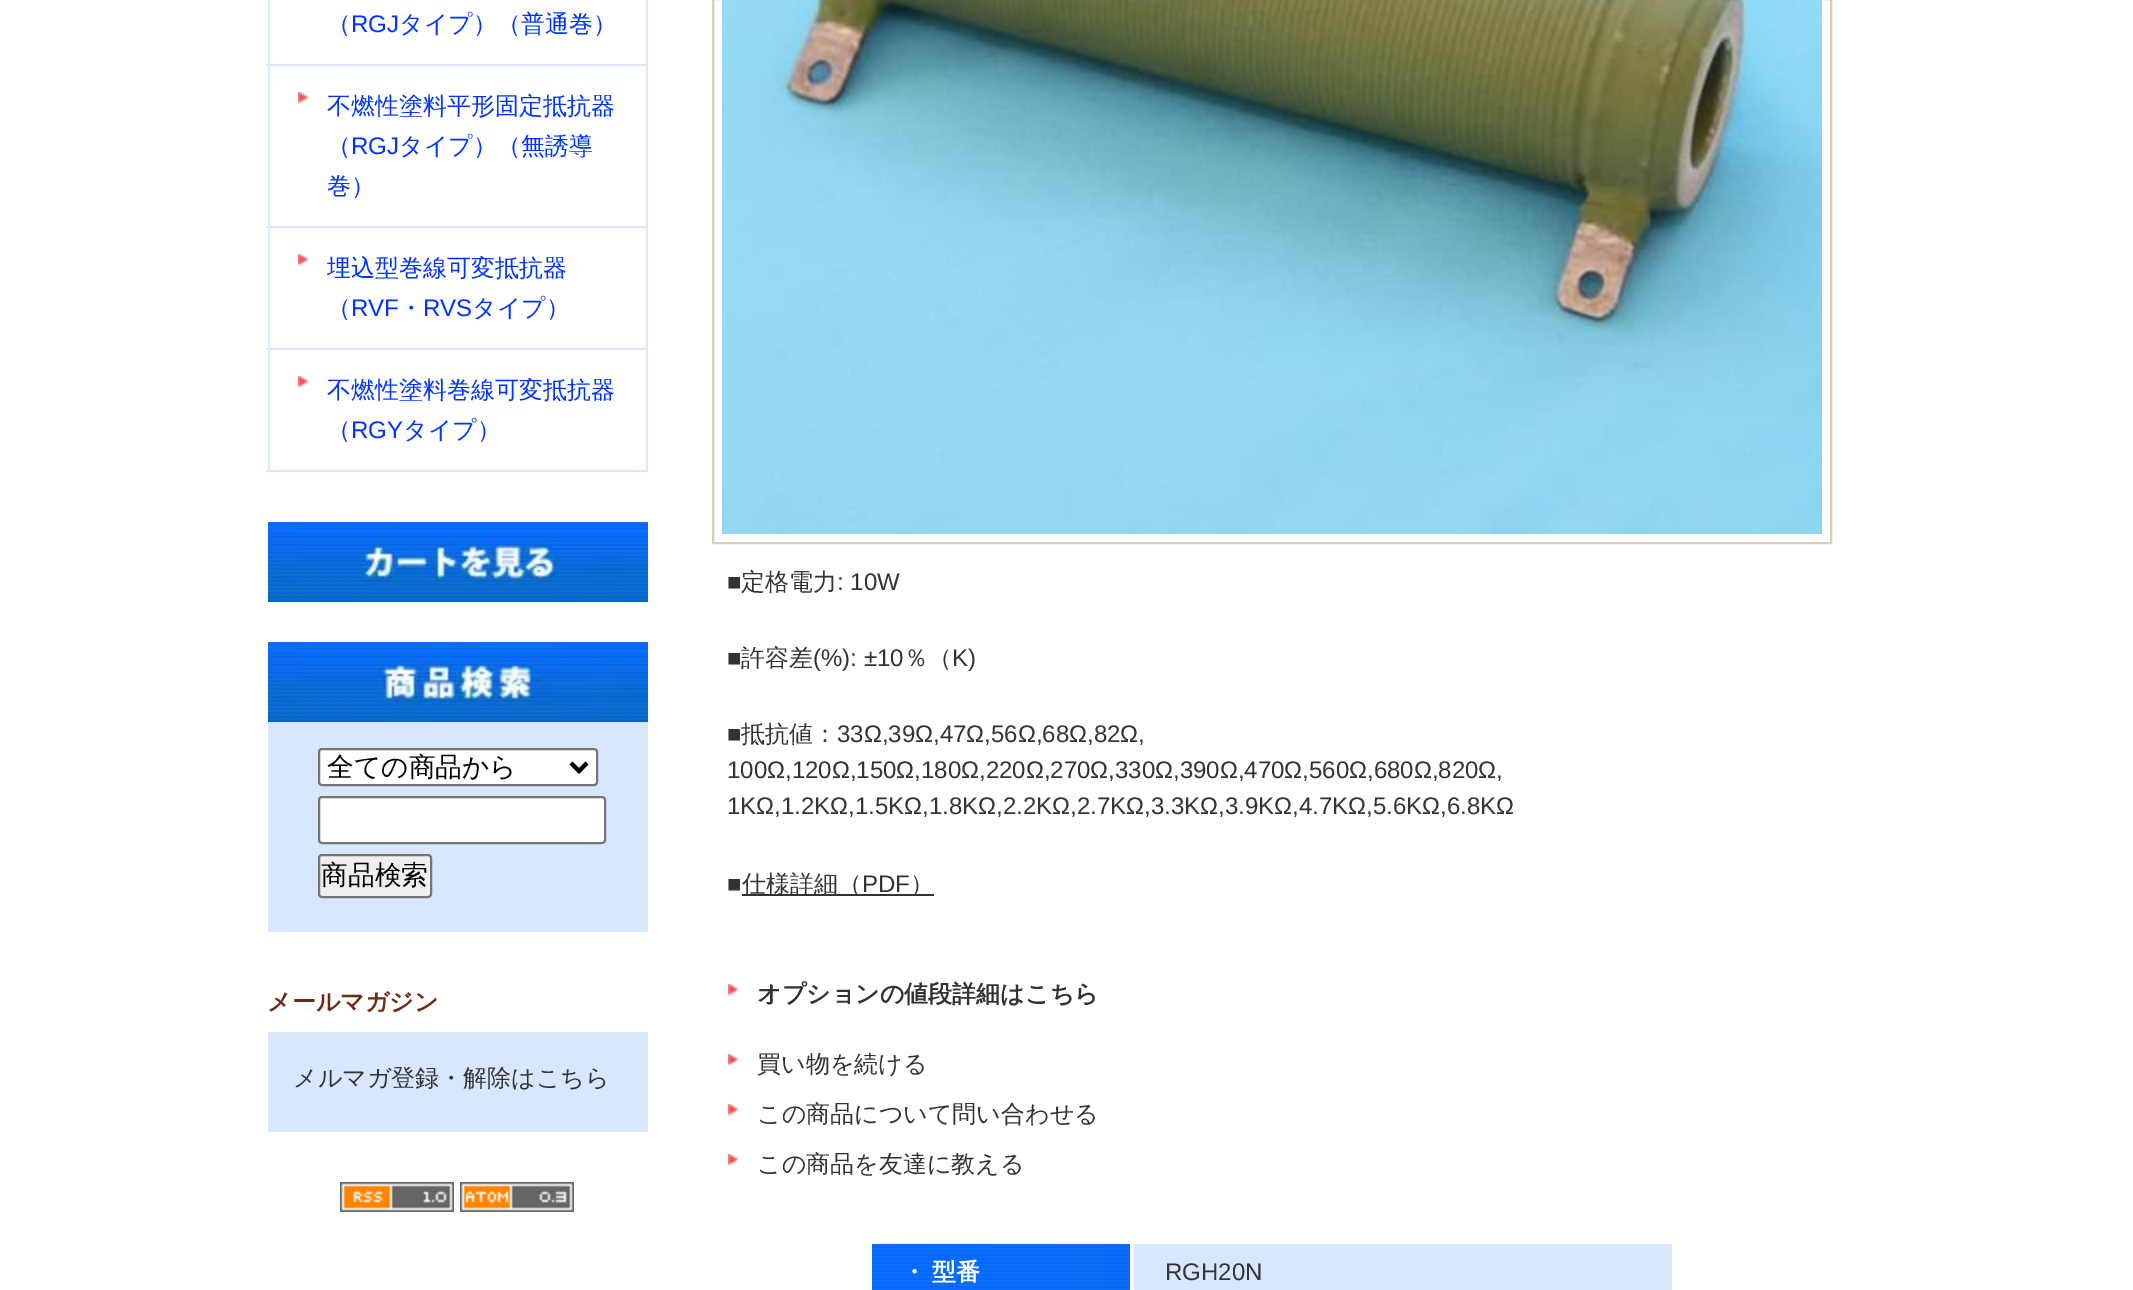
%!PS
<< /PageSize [2133 1290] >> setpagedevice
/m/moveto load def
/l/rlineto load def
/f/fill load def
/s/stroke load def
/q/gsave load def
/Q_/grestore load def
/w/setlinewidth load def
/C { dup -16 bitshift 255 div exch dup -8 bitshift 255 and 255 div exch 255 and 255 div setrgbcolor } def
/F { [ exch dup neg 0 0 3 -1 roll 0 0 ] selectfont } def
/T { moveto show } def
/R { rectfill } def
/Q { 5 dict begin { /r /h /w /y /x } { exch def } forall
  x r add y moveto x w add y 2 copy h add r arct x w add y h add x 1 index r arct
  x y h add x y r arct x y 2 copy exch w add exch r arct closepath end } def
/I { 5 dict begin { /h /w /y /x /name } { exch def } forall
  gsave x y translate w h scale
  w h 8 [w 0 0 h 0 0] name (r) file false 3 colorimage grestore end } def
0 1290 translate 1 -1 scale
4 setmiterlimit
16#FFFFFF C
0 0 2133 1290 R
(1.rgb) 268 0 380 470 I
16#D9E6FF C
266 64 382 2 R
/WenQuanYiZenHei-Medium 24 F
16#0033FF C
(（) 327 32 T
/LiberationSans-Regular 24 F
(RGJ) 351 32 T
/WenQuanYiZenHei-Medium 24 F
(タイプ）（普通巻）) 399 32 T
(2.rgb) 298 92 10 12 I
16#D9E6FF C
266 226 382 2 R
16#0033FF C
(不燃性塗料平形固定抵抗器) 327 114 T
(（) 327 154 T
/LiberationSans-Regular 24 F
(RGJ) 351 154 T
/WenQuanYiZenHei-Medium 24 F
(タイプ）（無誘導) 399 154 T
(巻）) 327 194 T
(2.rgb) 298 254 10 12 I
16#D9E6FF C
266 348 382 2 R
16#0033FF C
(埋込型巻線可変抵抗器) 327 276 T
(（) 327 316 T
/LiberationSans-Regular 24 F
(RVF) 351 316 T
/WenQuanYiZenHei-Medium 24 F
(・) 399 316 T
/LiberationSans-Regular 24 F
(RVS) 423 316 T
/WenQuanYiZenHei-Medium 24 F
(タイプ）) 472 316 T
(2.rgb) 298 376 10 12 I
16#D9E6FF C
266 470 382 2 R
16#0033FF C
(不燃性塗料巻線可変抵抗器) 327 398 T
(（) 327 438 T
/LiberationSans-Regular 24 F
(RGY) 351 438 T
/WenQuanYiZenHei-Medium 24 F
(タイプ）) 403 438 T
(3.rgb) 268 522 380 80 I
(4.rgb) 268 642 380 80 I
16#D9E6FF C
268 722 380 210 R
16#FFFFFF C
319 749 278 36 3 Q q f Q_
16#767676 C
2 w
s
16#000000 C
4 w
571 763 m 8 8 l 8 -8 l s
/WenQuanYiZenHei-Medium 26.75 F
(全ての商品から) 327 776 T
16#FFFFFF C
319 797 286 46 3 Q q f Q_
16#767676 C
2 w
s
16#EFEFEF C
319 855 112 42 3 Q q f Q_
16#767676 C
s
16#000000 C
(商品検索) 321 884 T
/WenQuanYiZenHei-Bold 24 F
16#6D2916 C
(メールマガジン) 267 1010 T
16#D9E6FF C
268 1032 380 100 R
/WenQuanYiZenHei-Medium 24 F
16#333333 C
(メルマガ登録・解除はこちら) 293 1086 T
(5.rgb) 340 1182 114 30 I
(6.rgb) 460 1182 114 30 I
16#DACDB9 C
713 -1 1118 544 rectstroke
(7.rgb) 722 0 1100 534 I
/LiberationSans-Regular 24 F
16#333333 C
(■) 727 590 T
/WenQuanYiZenHei-Medium 24 F
(定格電力) 741 590 T
/LiberationSans-Regular 24 F
(: 10W) 837 590 T
(■) 727 666 T
/WenQuanYiZenHei-Medium 24 F
(許容差) 741 666 T
/LiberationSans-Regular 24 F
(\(%\): ±10) 813 666 T
/WenQuanYiZenHei-Medium 24 F
(％（) 904 666 T
/LiberationSans-Regular 24 F
(K\)) 952 666 T
(■) 727 742 T
/WenQuanYiZenHei-Medium 24 F
(抵抗値：) 741 742 T
/LiberationSans-Regular 24 F
(33Ω,39Ω,47Ω,56Ω,68Ω,82Ω,) 837 742 T
(100Ω,120Ω,150Ω,180Ω,220Ω,270Ω,330Ω,390Ω,470Ω,560Ω,680Ω,820Ω,) 727 778 T
(1KΩ,1.2KΩ,1.5KΩ,1.8KΩ,2.2KΩ,2.7KΩ,3.3KΩ,3.9KΩ,4.7KΩ,5.6KΩ,6.8KΩ) 727 814 T
(■) 727 892 T
742 894 192 2 R
/WenQuanYiZenHei-Medium 24 F
(仕様詳細（) 742 892 T
/LiberationSans-Regular 24 F
(PDF) 862 892 T
/WenQuanYiZenHei-Medium 24 F
(）) 910 892 T
(2.rgb) 728 984 10 12 I
/WenQuanYiZenHei-Bold 24 F
(オプションの値段詳細はこちら) 757 1002 T
(2.rgb) 728 1054 10 12 I
/WenQuanYiZenHei-Medium 24 F
(買い物を続ける) 757 1072 T
(2.rgb) 728 1104 10 12 I
(この商品について問い合わせる) 757 1122 T
(2.rgb) 728 1154 10 12 I
(この商品を友達に教える) 757 1172 T
(8.rgb) 872 1244 258 46 I
/WenQuanYiZenHei-Bold 24 F
16#FFFFFF C
902 1280 m -1 0 32 (・ 型番) widthshow
16#D9E6FF C
1134 1244 538 46 R
/LiberationSans-Regular 24 F
16#333333 C
(RGH20N) 1165 1280 T
showpage
